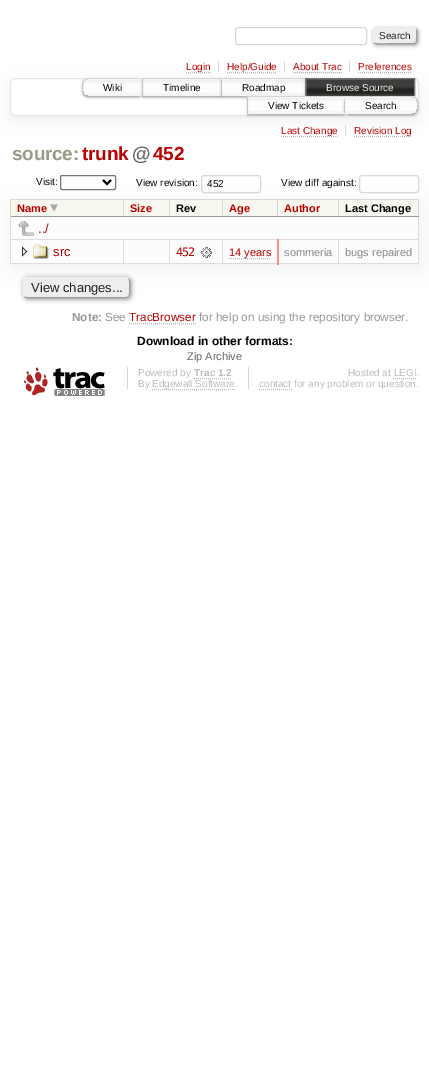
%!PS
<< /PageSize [429 1089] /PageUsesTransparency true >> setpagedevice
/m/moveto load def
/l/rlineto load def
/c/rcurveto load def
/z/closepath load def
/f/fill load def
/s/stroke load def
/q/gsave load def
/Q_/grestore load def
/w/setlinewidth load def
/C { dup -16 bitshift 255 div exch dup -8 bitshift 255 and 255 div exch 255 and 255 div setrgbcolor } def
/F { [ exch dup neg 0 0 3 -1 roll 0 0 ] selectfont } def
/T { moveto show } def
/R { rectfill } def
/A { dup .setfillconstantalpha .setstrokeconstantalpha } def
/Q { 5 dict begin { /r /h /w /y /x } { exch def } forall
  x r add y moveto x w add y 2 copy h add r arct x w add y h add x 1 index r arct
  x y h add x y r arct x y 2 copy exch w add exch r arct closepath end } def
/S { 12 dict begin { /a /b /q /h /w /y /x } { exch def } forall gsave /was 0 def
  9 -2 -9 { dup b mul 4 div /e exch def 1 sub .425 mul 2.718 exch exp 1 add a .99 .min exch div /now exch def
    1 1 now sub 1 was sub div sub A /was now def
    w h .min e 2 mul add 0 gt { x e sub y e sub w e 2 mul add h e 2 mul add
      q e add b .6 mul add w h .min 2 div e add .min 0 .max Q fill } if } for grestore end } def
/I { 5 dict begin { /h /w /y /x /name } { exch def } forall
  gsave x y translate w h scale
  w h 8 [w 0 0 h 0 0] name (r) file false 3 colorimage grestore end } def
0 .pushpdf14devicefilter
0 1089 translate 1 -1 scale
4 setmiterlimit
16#FFFFFF C
0 0 429 1089 R
16#D7D7D7 C
235.5 27.5 131 17 2.5 Q s
16#888888 C
374 29 44 16 3 2 1 S
16#EEEEEE C
373 28 44 16 3 Q f
16#9F9F9F C
416 29 m 1.5 2 .5 5 .5 7 c 0 8.5 .5 7.5 -9 7.5 c -12.5 0 l -3 0 -19 1 -21 -.5 c s
16#EEEEEE C
374 43 m -1.5 -2 -.5 -5 -.5 -7 c 0 -8.5 -.5 -7.5 9 -7.5 c 12.5 0 l 3 0 19 -1 21 .5 c s
/LiberationSans-Regular 10 F
16#222222 C
(Search) 379 39 T
q
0 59 m 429 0 l 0 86 l -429 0 l z 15 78 m 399 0 l 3 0 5 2 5 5 c 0 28 l 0 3 -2 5 -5 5 c -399 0 l -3 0 -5 -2 -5 -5 c 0 -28 l 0 -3 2 -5 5 -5 c z eoclip newpath
16#EEEEEE C
10 83 409 38 5 7.5 1 S
Q_
16#D7D7D7 C
218 61 1 11 R
16#BBBBBB C
[1 1] 0 setdash
186 72.5 m 25 0 l s
16#BB0000 C
(Login) 186 70 T
16#D7D7D7 C
284 61 1 11 R
16#BBBBBB C
227 72.5 m 50 0 l s
16#BB0000 C
(Help/Guide) 227 70 T
16#D7D7D7 C
349 61 1 11 R
16#BB0000 C
(About Trac) 293 70 T
16#BBBBBB C
293 72.5 m 49 0 l s
16#BB0000 C
(Preferences) 358 70 T
16#BBBBBB C
358 72.5 m 54 0 l s
16#E4E4E4 C
[] 0 setdash
10.5 78.5 408 37 4.5 Q s
16#FFFFFF C
87 78 m 56 0 l 0 19 l -56 0 l -3 0 -5 -2 -5 -5 c 0 -9 l 0 -3 2 -5 5 -5 c z f
(1.rgb) 82 80 60 17 I
16#E4E4E4 C
87 78.5 m 55.5 0 l 0 18 l -55.5 0 l -2.5 0 -4.5 -2 -4.5 -4.5 c 0 -9 l 0 -2.5 2 -4.5 4.5 -4.5 c z s
q
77 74 m 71 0 l 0 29 l -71 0 l z 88 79 m 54 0 l 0 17 l -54 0 l -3 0 -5 -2 -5 -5 c 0 -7 l 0 -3 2 -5 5 -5 c z eoclip newpath
16#999999 C
83 80 59 17 5 1.5 1 S
Q_
16#000000 C
(Wiki) 103 91 T
16#FFFFFF C
143 81 2 15 R
(2.rgb) 143 80 78 16 I
16#E4E4E4 C
142.5 78.5 79 18 rectstroke
q
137 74 m 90 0 l 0 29 l -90 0 l z 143 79 m 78 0 l 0 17 l -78 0 l z eoclip newpath
16#999999 C
143 80 78 17 0 1.5 1 S
Q_
16#000000 C
(Timeline) 163 91 T
16#FFFFFF C
222 79 2 17 R
(3.rgb) 222 80 83 16 I
16#E4E4E4 C
221.5 78.5 84 18 rectstroke
q
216 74 m 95 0 l 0 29 l -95 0 l z 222 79 m 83 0 l 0 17 l -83 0 l z eoclip newpath
16#999999 C
222 80 83 17 0 1.5 1 S
Q_
16#000000 C
(Roadmap) 242 91 T
16#666666 C
305.5 78.5 109 18 rectstroke
16#999999 C
306 80 108 17 0 1.5 1 S
16#000000 C
306 79 108 17 R
(4.rgb) 306 79 108 17 I
16#EEEEEE C
(Browse Source) 326 91 T
16#FFFFFF C
248 97 96 3 R
(5.rgb) 248 98 96 16 I
16#E4E4E4 C
247.5 96.5 97 18 rectstroke
q
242 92 m 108 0 l 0 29 l -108 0 l z 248 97 m 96 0 l 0 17 l -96 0 l z eoclip newpath
16#999999 C
248 98 96 17 0 1.5 1 S
Q_
16#000000 C
(View Tickets) 268 109 T
16#FFFFFF C
344 96 m 69 0 l 3 0 5 2 5 5 c 0 9 l 0 3 -2 5 -5 5 c -69 0 l z f
(6.rgb) 345 98 73 17 I
16#E4E4E4 C
344.5 96.5 m 68.5 0 l 2.5 0 4.5 2 4.5 4.5 c 0 9 l 0 2.5 -2 4.5 -4.5 4.5 c -68.5 0 l z s
q
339 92 m 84 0 l 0 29 l -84 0 l z 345 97 m 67 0 l 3 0 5 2 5 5 c 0 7 l 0 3 -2 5 -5 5 c -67 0 l z eoclip newpath
16#999999 C
345 98 72 17 5 1.5 1 S
Q_
16#000000 C
(Search) 365 109 T
16#D7D7D7 C
345 125 1 11 R
16#BBBBBB C
[1 1] 0 setdash
281 136.5 m 57 0 l s
16#BB0000 C
(Last Change) 281 134 T
16#BBBBBB C
354 136.5 m 58 0 l s
16#BB0000 C
(Revision Log) 354 134 T
/LiberationSans-Bold 19 F
16#999988 C
12 160 m -.25 0 (source:) ashow
16#BB0000 C
82 160 m -.25 0 (trunk) ashow
16#666666 C
132 160 m -.25 0 (@) ashow
16#BB0000 C
153 160 m -.25 0 (452) ashow
16#EEEEEE C
13 203 409 65 0 10 1 S
/LiberationSans-Regular 10 F
16#000000 C
(Visit:) 36 185 T
16#767676 C
[] 0 setdash
60.5 175.5 55 14 1.5 Q s
16#000000 C
2 w
103 180 m 4 4 l 4 -4 l s
(View revision:) 136 186 T
16#D7D7D7 C
1 w
201.5 175.5 59 17 2.5 Q s
16#000000 C
(452) 207 187 T
(View diff against:) 281 186 T
16#D7D7D7 C
359.5 175.5 59 17 2.5 Q s
223 263 54 1 R
16#F7F7F0 C
11 200 407 16 R
16#D7D7D7 C
338 199 81 1 R
16#DDDDDD C
10 239 409 1 R
418 216 1 48 R
16#D7D7D7 C
418 199 1 18 R
16#999999 C
338 216 81 1 R
16#D7D7D7 C
338 199 1 18 R
277 199 62 1 R
16#999999 C
277 216 62 1 R
16#D7D7D7 C
277 199 1 18 R
222 199 56 1 R
16#999999 C
222 216 56 1 R
16#D7D7D7 C
222 199 1 18 R
169 199 54 1 R
16#999999 C
169 216 54 1 R
16#D7D7D7 C
169 199 1 18 R
123 199 47 1 R
16#999999 C
123 216 47 1 R
16#D7D7D7 C
123 199 1 18 R
10 199 114 1 R
16#FCFCFC C
11 240 407 23 R
16#DDDDDD C
222 239 1 25 R
169 263 54 1 R
169 239 1 25 R
123 263 47 1 R
123 239 1 25 R
10 263 114 1 R
10 216 1 48 R
16#999999 C
10 216 114 1 R
16#D7D7D7 C
10 199 1 18 R
/LiberationSans-Bold 11 F
16#BB0000 C
(Name) 17 212 T
(7.rgb) 50 204 8 7 I
(Size) 130 212 T
16#000000 C
(Rev) 176 212 T
16#BB0000 C
(Age) 229 212 T
(Author) 284 212 T
16#000000 C
(Last Change) 345 212 T
16#FCFCFC C
11 217 407 22 R
(8.rgb) 18 221 16 15 I
/LiberationSans-Regular 13 F
16#BB0000 C
(../) 38 233 T
(9.rgb) 22 246 6 11 I
(10.rgb) 33 244 16 15 I
(src) 53 256 T
/DejaVuSansMono-Regular 11.75 F
176 256 m -1 0 (452) ashow
(11.rgb) 201 247 11 11 I
16#DDDDDD C
338 263 81 1 R
338 239 1 25 R
277 263 62 1 R
16#FF8888 C
277 239 2 26 R
16#BBBBBB C
[1 1] 0 setdash
229 258.5 m 42 0 l s
/LiberationSans-Regular 11 F
16#BB0000 C
(14 years) 229 256 T
16#888888 C
(sommeria) 284 256 T
(bugs repaired) 345 256 T
24 278 107 21 4 2.5 1 S
16#EEEEEE C
23 277 107 21 4 Q f
16#9F9F9F C
[] 0 setdash
128.5 278.5 m 2 2 1 8.5 1 11 c 0 3 1 8 -3.5 8 c -100 0 l -1.5 -1 l s
16#EEEEEE C
24.5 296.5 m -2 -2 -1 -8.5 -1 -11 c 0 -3 -1 -8 3.5 -8 c 100 0 l 1.5 1 l s
/LiberationSans-Regular 13 F
16#222222 C
(View changes...) 31 292 T
/LiberationSans-Bold 11.75 F
16#999999 C
(Note:) 72 321 T
/LiberationSans-Regular 11.75 F
(See) 105 321 T
16#BB0000 C
(TracBrowser) 129 321 T
16#BBBBBB C
[1 1] 0 setdash
129 323.5 m 67 0 l s
16#999999 C
(for help on using the repository browser.) 199 321 T
/LiberationSans-Bold 12 F
16#000000 C
(Download in other formats:) 137 345 T
/LiberationSans-Regular 11 F
16#666666 C
(Zip Archive) 187 360 T
(12.rgb) 24 367 81 29 I
16#D7D7D7 C
248 367 1 22 R
127 367 1 22 R
/LiberationSans-Regular 10 F
16#BBBBBB C
(Powered by) 138 376 T
/LiberationSans-Bold 10 F
(Trac 1.2) 194 376 T
194 378.5 m 37 0 l s
/LiberationSans-Regular 10 F
(By) 138 387 T
152 389.5 m 83 0 l s
(Edgewall Software.) 152 387 T
(Hosted at LEGI.) 348 376 T
393 378.5 m 23 0 l s
259 389.5 m 33 0 l s
(contact for any problem or question.) 259 387 T
.poppdf14devicefilter showpage
